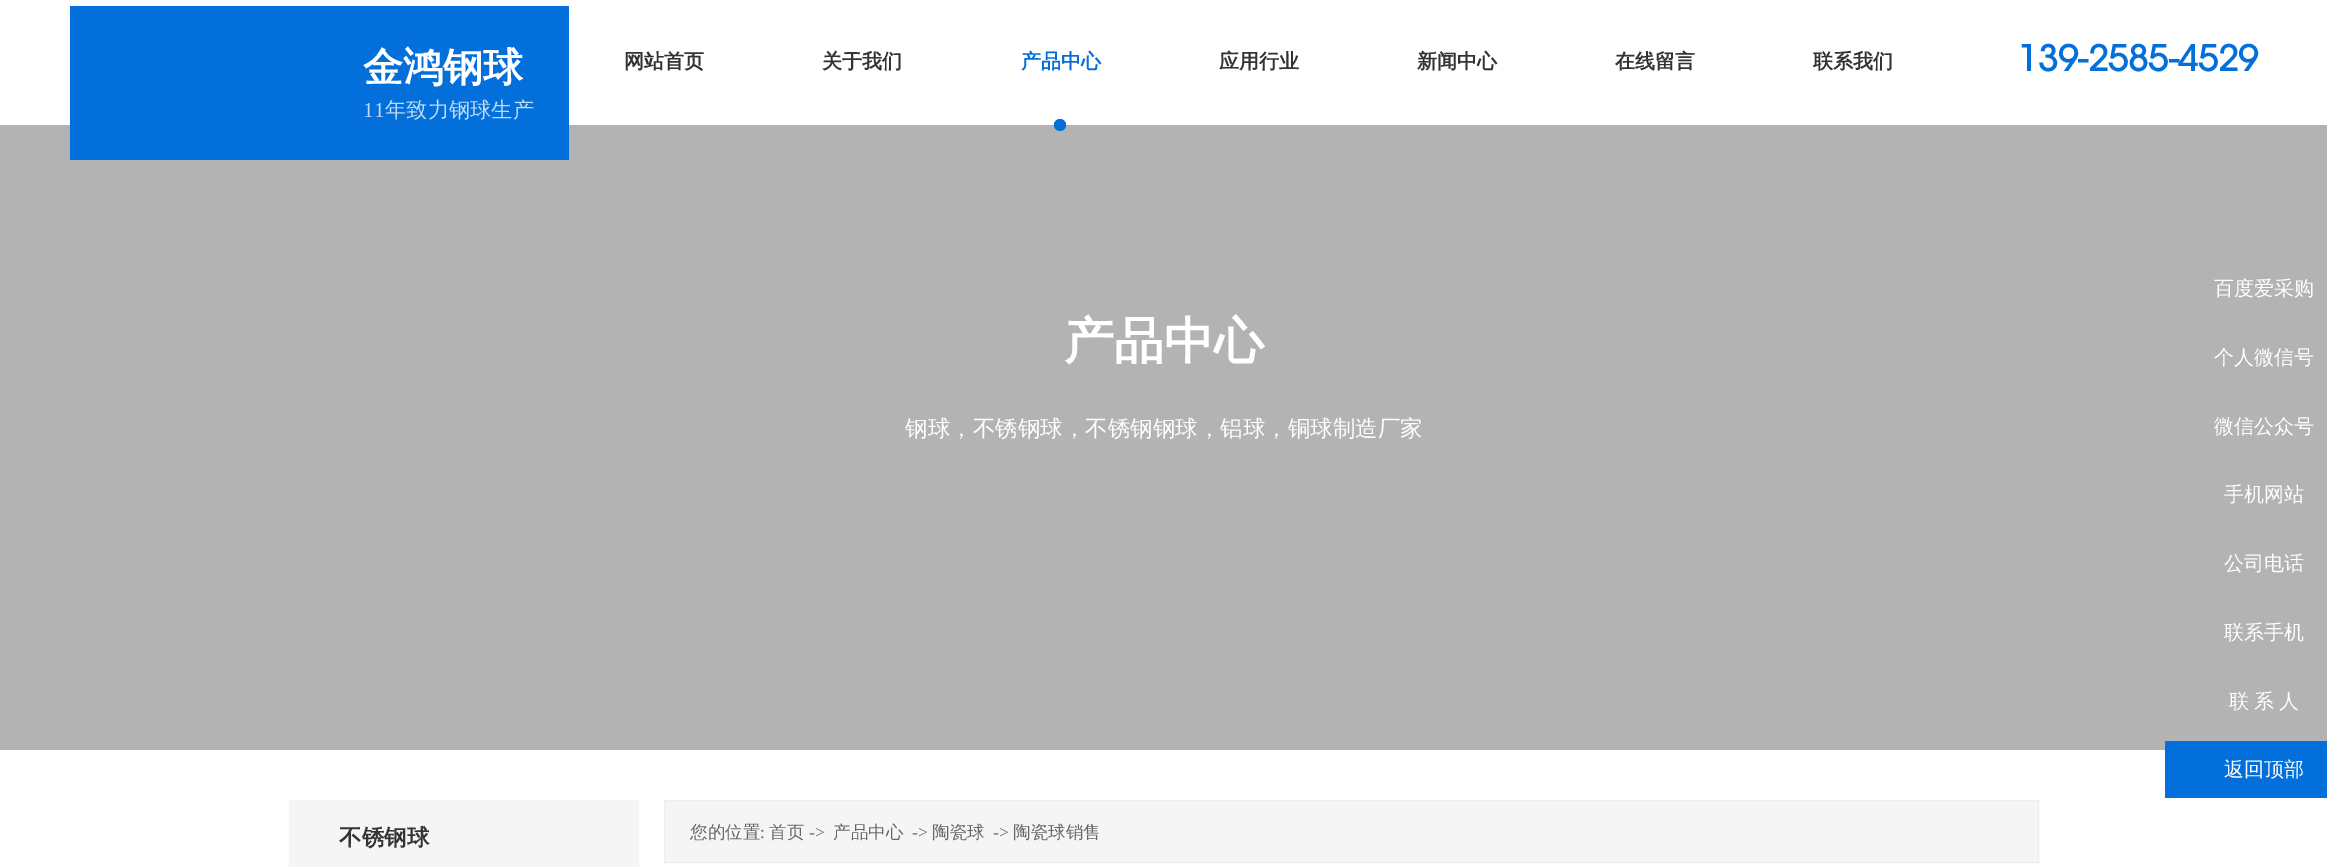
%!PS
<< /PageSize [2327 867] >> setpagedevice
/m/moveto load def
/l/rlineto load def
/z/closepath load def
/f/fill load def
/s/stroke load def
/q/gsave load def
/Q_/grestore load def
/C { dup -16 bitshift 255 div exch dup -8 bitshift 255 and 255 div exch 255 and 255 div setrgbcolor } def
/F { [ exch dup neg 0 0 3 -1 roll 0 0 ] selectfont } def
/T { moveto show } def
/R { rectfill } def
/O { newpath 0 360 arc closepath } def
0 867 translate 1 -1 scale
4 setmiterlimit
16#FFFFFF C
0 0 2327 867 R
16#B3B3B3 C
0 125 2327 625 R
16#036FDA C
70 6 499 154 R
/WenQuanYiZenHei-Bold 40 F
16#FFFFFF C
(金鸿钢球) 363 81 T
/LiberationSerif-Regular 21.25 F
16#C0DBF6 C
(11) 363 117 T
/WenQuanYiZenHei-Medium 21.25 F
(年致力钢球生产) 385 117 T
/WenQuanYiZenHei-Bold 20 F
16#333333 C
(网站首页) 624 68 T
(关于我们) 822 68 T
16#036FDA C
(产品中心) 1021 68 T
1060 125 6 O f
16#333333 C
(应用行业) 1219 68 T
(新闻中心) 1417 68 T
(在线留言) 1615 68 T
(联系我们) 1813 68 T
/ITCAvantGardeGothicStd-Bold 35 F
16#036FDA C
(139-2585-4529) 2018 71 T
/WenQuanYiZenHei-Bold 50 F
16#FFFFFF C
(产品中心) 1064 358 T
/WenQuanYiZenHei-Medium 22.5 F
(钢球，不锈钢球，不锈钢钢球，铝球，铜球制造厂家) 905 436 T
/WenQuanYiZenHei-Medium 20 F
(百度爱采购) 2214 295 T
(个人微信号) 2214 364 T
(微信公众号) 2214 433 T
(手机网站) 2224 501 T
(公司电话) 2224 570 T
(联系手机) 2224 639 T
2229 708 m -1 0 32 (联 系 人) widthshow
16#036FDA C
2165 741 162 57 R
16#FFFFFF C
(返回顶部) 2224 776 T
16#F5F5F5 C
289 800 350 67 R
/WenQuanYiZenHei-Bold 22.5 F
16#333333 C
(不锈钢球) 339 845 T
16#F5F5F5 C
664.5 800.5 m 1374 0 l 0 62 l -1374 0 l z q f Q_
16#EEEEEE C
s
/WenQuanYiZenHei-Medium 17.5 F
16#666666 C
(您的位置) 690 838 T
/LiberationSerif-Regular 17.5 F
(:) 760 838 T
/WenQuanYiZenHei-Medium 17.5 F
(首页) 769 838 T
/LiberationSerif-Regular 17.5 F
(->) 809 838 T
/WenQuanYiZenHei-Medium 17.5 F
(产品中心) 833 838 T
/LiberationSerif-Regular 17.5 F
(->) 912 838 T
/WenQuanYiZenHei-Medium 17.5 F
(陶瓷球) 932 838 T
/LiberationSerif-Regular 17.5 F
(->) 993 838 T
/WenQuanYiZenHei-Medium 17.5 F
(陶瓷球销售) 1013 838 T
showpage
